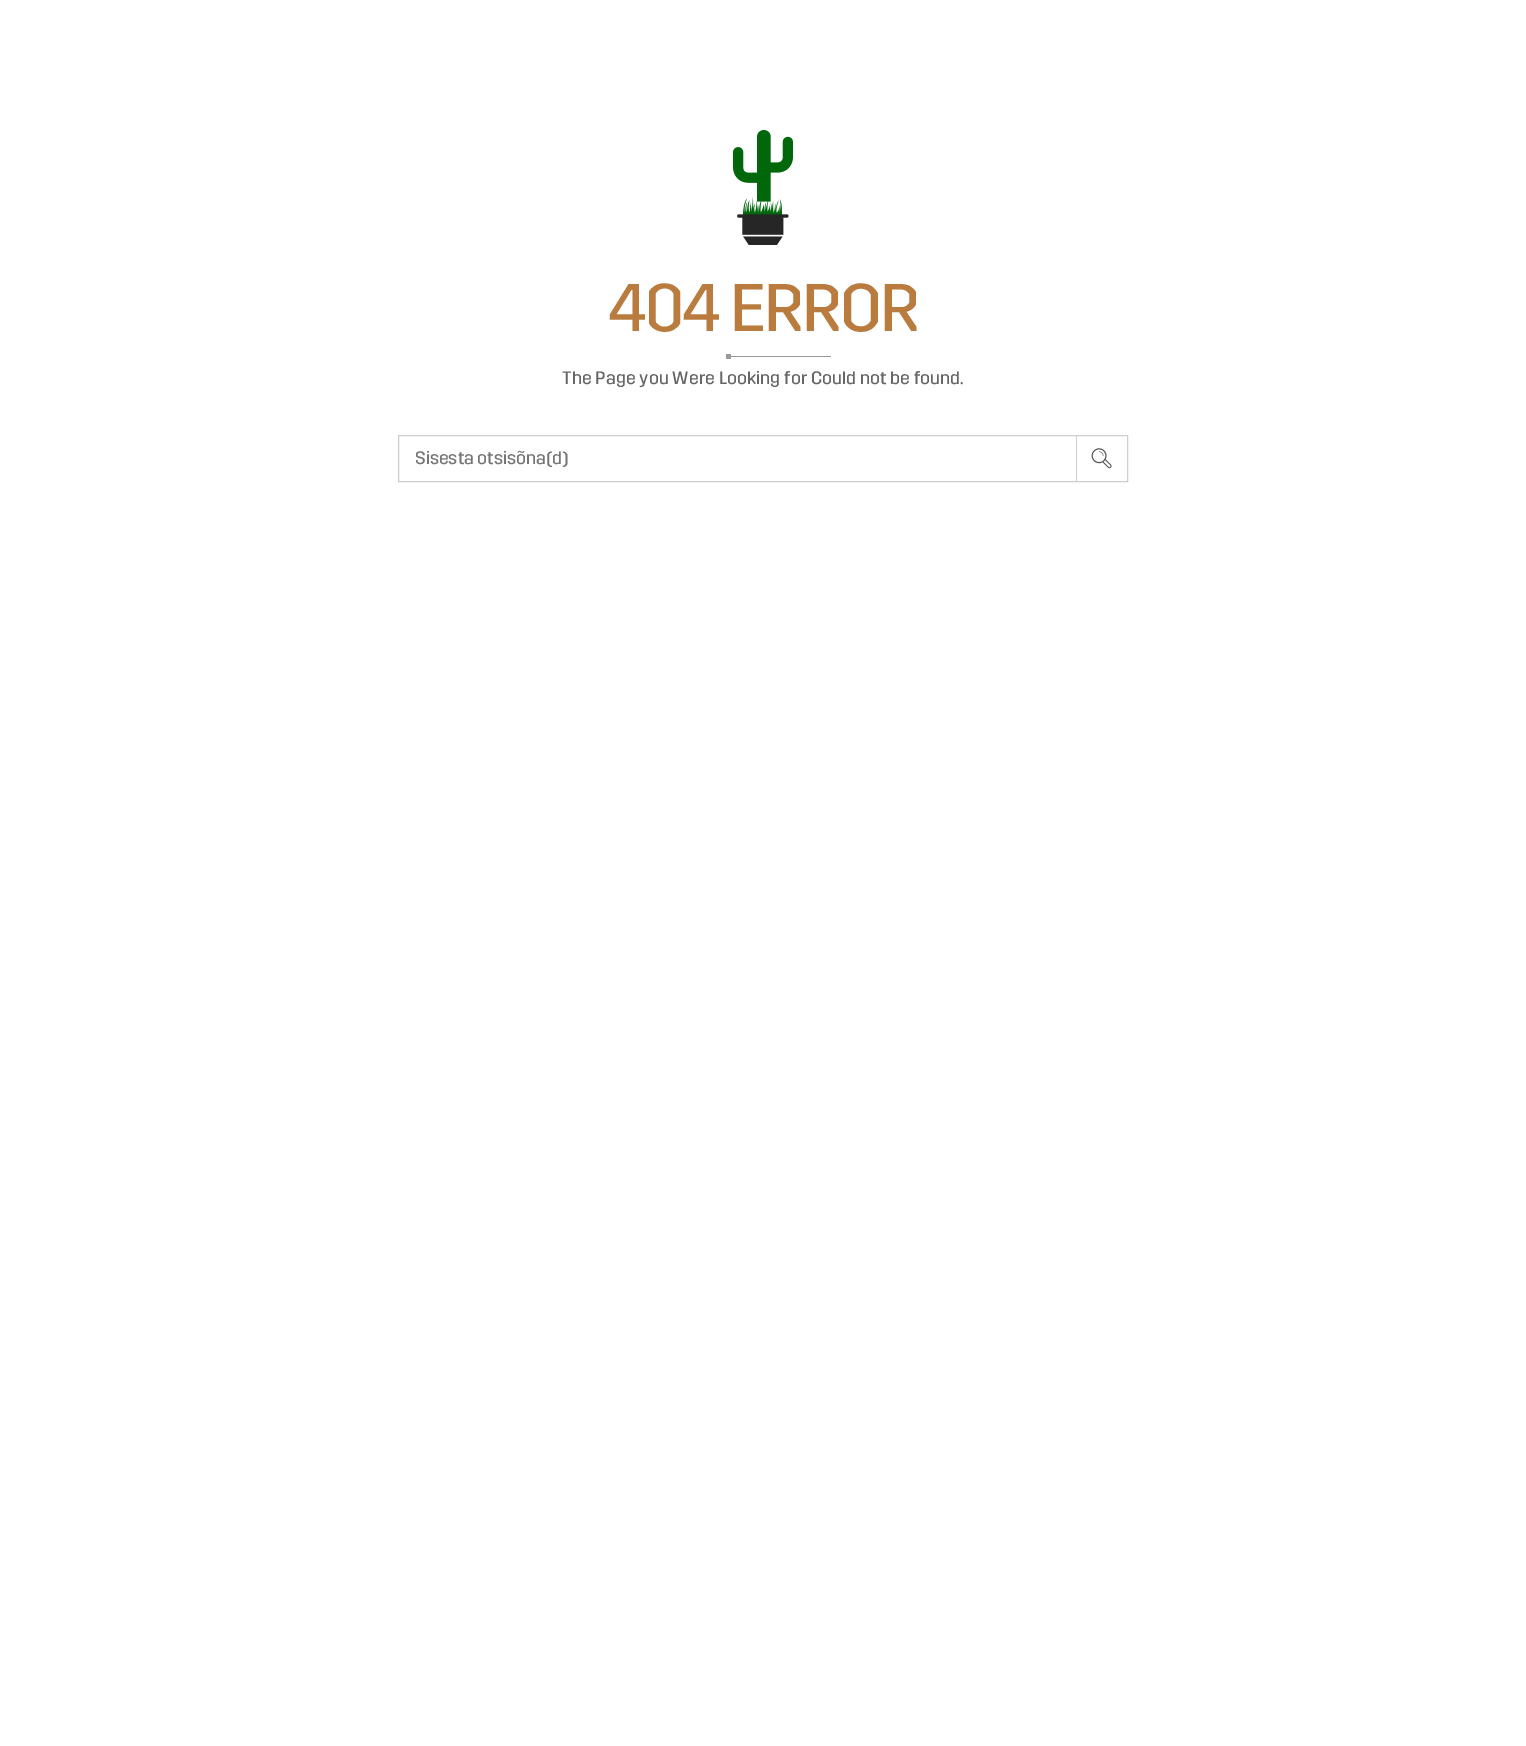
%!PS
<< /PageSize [1526 1746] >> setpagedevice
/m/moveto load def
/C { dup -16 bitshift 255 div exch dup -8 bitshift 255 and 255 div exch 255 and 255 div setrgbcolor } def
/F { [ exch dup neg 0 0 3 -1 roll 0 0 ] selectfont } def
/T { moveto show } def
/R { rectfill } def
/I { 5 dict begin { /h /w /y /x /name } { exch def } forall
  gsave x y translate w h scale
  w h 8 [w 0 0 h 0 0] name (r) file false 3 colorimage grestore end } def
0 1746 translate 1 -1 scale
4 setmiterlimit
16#FFFFFF C
0 0 1526 1746 R
(1.rgb) 733 130 60 115 I
/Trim-Regular 67 F
16#BA7B3F C
608 331 m -2 0 (404 ERROR) ashow
16#999999 C
726 354 5 5 R
731 356 100 1 R
/Trim-Regular 18 F
16#666666 C
562 384 m .1 0 (The Page you Were Looking for Could not be found.) ashow
16#CECECE C
398.5 435.5 729 46 rectstroke
16#757575 C
(Sisesta otsisõna\(d\)) 415 464 T
16#CECECE C
1076 435 1 47 R
(2.rgb) 1091 448 21 21 I
showpage
